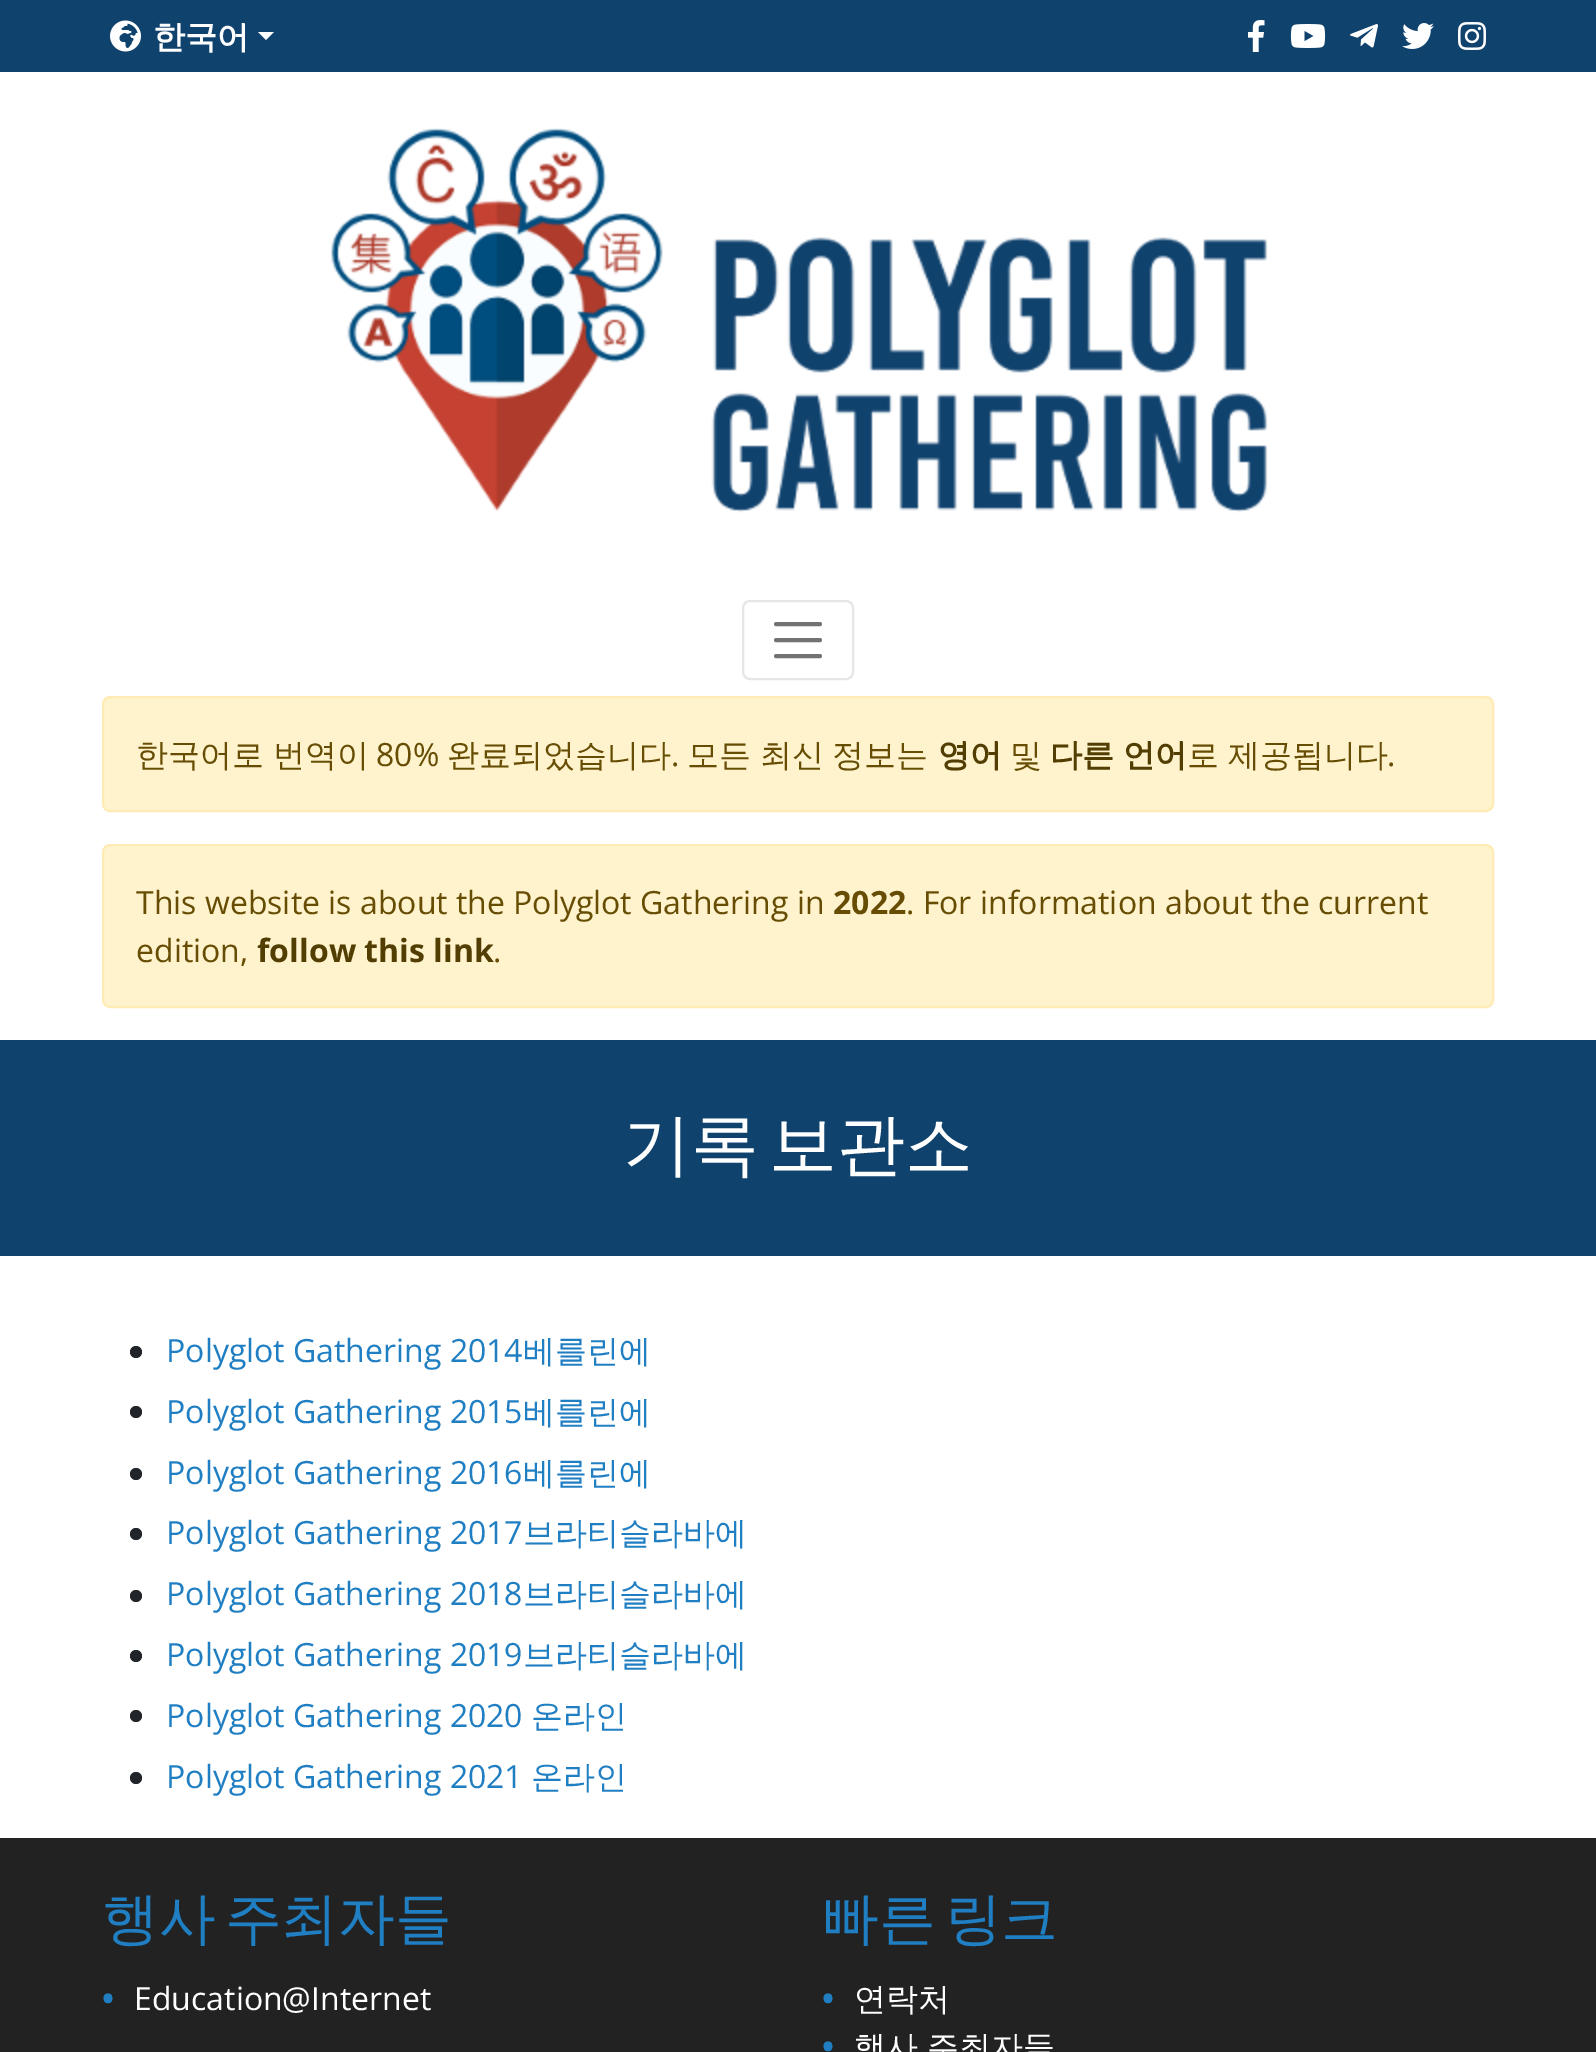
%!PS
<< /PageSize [1596 2052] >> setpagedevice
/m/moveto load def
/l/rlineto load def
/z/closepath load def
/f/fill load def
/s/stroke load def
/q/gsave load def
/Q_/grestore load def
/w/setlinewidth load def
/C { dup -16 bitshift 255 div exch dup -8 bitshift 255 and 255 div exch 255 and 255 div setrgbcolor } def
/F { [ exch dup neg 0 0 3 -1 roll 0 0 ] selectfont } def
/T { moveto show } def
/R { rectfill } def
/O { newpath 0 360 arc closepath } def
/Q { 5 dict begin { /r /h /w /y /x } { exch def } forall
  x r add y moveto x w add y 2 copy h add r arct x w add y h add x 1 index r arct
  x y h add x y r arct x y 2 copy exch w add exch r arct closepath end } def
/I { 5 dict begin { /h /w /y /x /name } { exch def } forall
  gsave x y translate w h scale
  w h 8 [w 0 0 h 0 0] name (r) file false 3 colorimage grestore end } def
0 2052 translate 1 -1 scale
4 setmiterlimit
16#FFFFFF C
0 0 1596 2052 R
16#10426E C
0 0 1596 72 R
(1.rgb) 110 20 31 32 I
/WenQuanYiZenHei-Bold 32 F
16#FFFFFF C
(한국어) 153 48 T
258 32 m 16 0 l -8 8 l z f
(2.rgb) 1248 20 17 32 I
(3.rgb) 1290 24 36 24 I
(4.rgb) 1350 24 28 24 I
(5.rgb) 1402 23 32 26 I
(6.rgb) 1458 22 28 28 I
(7.rgb) 330 128 938 385 I
16#E6E6E6 C
2 w
743 601 110 78 7 Q s
16#737373 C
4 w
1 setlinecap
776 624 m 44 0 l 776 640 m 44 0 l 776 656 m 44 0 l s
16#FFF3CD C
103 697 1390 114 7 Q q f Q_
16#FFECB5 C
2 w
0 setlinecap
s
/WenQuanYiZenHei-Medium 32 F
16#664D03 C
136 766 m -1 0 32 (한국어로 번역이) widthshow
/OpenSans-Regular 32 F
(80%) 376 766 T
/WenQuanYiZenHei-Medium 32 F
(완료되었습니다) 447 766 T
/OpenSans-Regular 32 F
(.) 671 766 T
/WenQuanYiZenHei-Medium 32 F
687 766 m -1 0 32 (모든 최신 정보는) widthshow
/WenQuanYiZenHei-Bold 32 F
16#523E02 C
(영어) 938 766 T
/WenQuanYiZenHei-Medium 32 F
16#664D03 C
(및) 1010 766 T
/WenQuanYiZenHei-Bold 32 F
16#523E02 C
1050 766 m -1 0 32 (다른 언어) widthshow
/WenQuanYiZenHei-Medium 32 F
16#664D03 C
1187 766 m -1 0 32 (로 제공됩니다) widthshow
/OpenSans-Regular 32 F
(.) 1387 766 T
16#FFF3CD C
103 845 1390 162 7 Q q f Q_
16#FFECB5 C
s
16#664D03 C
(This website is about the Polyglot Gathering in) 136 914 T
/OpenSans-Bold 32 F
(2022) 833 914 T
/OpenSans-Regular 32 F
(. For information about the current) 906 914 T
(edition,) 136 962 T
/OpenSans-Bold 32 F
16#523E02 C
(follow this link) 257 962 T
/OpenSans-Regular 32 F
16#664D03 C
(.) 493 962 T
16#10426E C
0 1040 1596 216 R
/WenQuanYiZenHei-Medium 68 F
16#FFFFFF C
623 1168 m -10 0 32 (기록 보관소) widthshow
16#212529 C
136 1352 6 O f
/OpenSans-Regular 32 F
16#207EC2 C
(Polyglot Gathering 2014) 166 1362 T
/WenQuanYiZenHei-Medium 32 F
(베를린에) 523 1362 T
16#212529 C
136 1412 6 O f
/OpenSans-Regular 32 F
16#207EC2 C
(Polyglot Gathering 2015) 166 1423 T
/WenQuanYiZenHei-Medium 32 F
(베를린에) 523 1423 T
16#212529 C
136 1474 6 O f
/OpenSans-Regular 32 F
16#207EC2 C
(Polyglot Gathering 2016) 166 1484 T
/WenQuanYiZenHei-Medium 32 F
(베를린에) 523 1484 T
16#212529 C
136 1534 6 O f
/OpenSans-Regular 32 F
16#207EC2 C
(Polyglot Gathering 2017) 166 1544 T
/WenQuanYiZenHei-Medium 32 F
(브라티슬라바에) 523 1544 T
16#212529 C
136 1596 6 O f
/OpenSans-Regular 32 F
16#207EC2 C
(Polyglot Gathering 2018) 166 1605 T
/WenQuanYiZenHei-Medium 32 F
(브라티슬라바에) 523 1605 T
16#212529 C
136 1656 6 O f
/OpenSans-Regular 32 F
16#207EC2 C
(Polyglot Gathering 2019) 166 1666 T
/WenQuanYiZenHei-Medium 32 F
(브라티슬라바에) 523 1666 T
16#212529 C
136 1716 6 O f
/OpenSans-Regular 32 F
16#207EC2 C
(Polyglot Gathering 2020) 166 1727 T
/WenQuanYiZenHei-Medium 32 F
(온라인) 531 1727 T
16#212529 C
136 1778 6 O f
/OpenSans-Regular 32 F
16#207EC2 C
(Polyglot Gathering 2021) 166 1788 T
/WenQuanYiZenHei-Medium 32 F
(온라인) 531 1788 T
16#222222 C
0 1838 1596 214 R
/WenQuanYiZenHei-Medium 56.75 F
16#207EC2 C
102 1938 m -8 0 32 (행사 주최자들) widthshow
/OpenSans-Bold 32 F
(•) 102 2010 T
/OpenSans-Regular 32 F
16#FFFFFF C
(Education@Internet) 134 2010 T
/WenQuanYiZenHei-Medium 56.75 F
16#207EC2 C
822 1938 m -8 0 32 (빠른 링크) widthshow
/OpenSans-Bold 32 F
(•) 822 2010 T
/WenQuanYiZenHei-Medium 32 F
16#FFFFFF C
(연락처) 854 2010 T
/OpenSans-Bold 32 F
16#207EC2 C
(•) 822 2058 T
/WenQuanYiZenHei-Medium 32 F
16#FFFFFF C
854 2058 m -1 0 32 (행사 주최자들) widthshow
showpage
